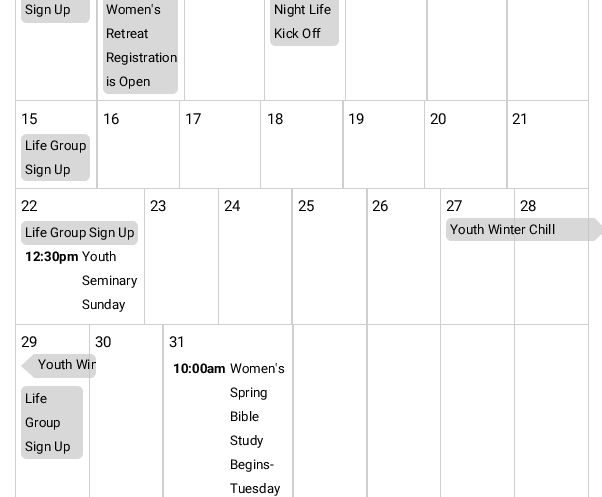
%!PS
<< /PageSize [602 497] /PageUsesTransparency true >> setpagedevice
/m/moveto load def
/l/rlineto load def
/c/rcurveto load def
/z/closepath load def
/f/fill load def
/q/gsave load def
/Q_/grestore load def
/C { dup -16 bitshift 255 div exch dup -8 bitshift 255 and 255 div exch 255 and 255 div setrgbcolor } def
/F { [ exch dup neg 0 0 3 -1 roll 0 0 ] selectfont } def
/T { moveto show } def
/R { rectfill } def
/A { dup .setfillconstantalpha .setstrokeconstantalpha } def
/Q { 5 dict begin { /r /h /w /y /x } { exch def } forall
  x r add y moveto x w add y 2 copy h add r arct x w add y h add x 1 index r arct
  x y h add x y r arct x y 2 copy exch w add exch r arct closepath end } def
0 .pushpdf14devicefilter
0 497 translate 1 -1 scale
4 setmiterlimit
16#FFFFFF C
0 0 602 497 R
16#CFCFCF C
16 100 m 0 1 l 82 0 l 0 -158 l -2 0 l 0 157 l z f
15 0 1 101 R
16#D8D8D8 C
21 -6 69 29 6 Q f
/Roboto-Regular 13.25 F
16#000000 C
(Sign Up) 25 14 T
16#CFCFCF C
98 100 m 0 1 l 87 0 l 0 -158 l -1 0 l 0 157 l z f
16#D8D8D8 C
103 -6 75 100 6 Q f
16#000000 C
(Women's) 106 14 T
(Retreat) 106 38 T
(Registration) 106 62 T
(is Open) 106 86 T
16#CFCFCF C
185 100 m 0 1 l 80 0 l 0 -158 l -1 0 l 0 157 l z f
265 100 m 0 1 l 81 0 l 0 -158 l -1 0 l 0 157 l z f
16#D8D8D8 C
270 -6 69 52 6 Q f
16#000000 C
(Night Life) 274 14 T
(Kick Off) 274 38 T
16#CFCFCF C
346 100 m 0 1 l 82 0 l 0 -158 l -2 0 l 0 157 l z f
428 100 m 0 1 l 80 0 l 0 -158 l -2 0 l 0 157 l z f
508 100 m 0 1 l 81 0 l 0 -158 l -1 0 l 0 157 l z f
16 188 m 0 1 l 82 0 l 0 -88 l -2 0 l 0 87 l z f
15 100 1 224 R
/Roboto-Regular 15 F
16#000000 C
(15) 21 124 T
16#D8D8D8 C
21 134 69 47 6 Q f
/Roboto-Regular 13.25 F
16#000000 C
(Life Group) 25 150 T
(Sign Up) 25 174 T
16#CFCFCF C
98 188 m 0 1 l 82 0 l 0 -88 l -1 0 l 0 87 l z f
/Roboto-Regular 15 F
16#000000 C
(16) 103 124 T
16#CFCFCF C
180 188 m 0 1 l 81 0 l 0 -88 l -1 0 l 0 87 l z f
16#000000 C
(17) 185 124 T
16#CFCFCF C
261 188 m 0 1 l 83 0 l 0 -88 l -2 0 l 0 87 l z f
16#000000 C
(18) 267 124 T
16#CFCFCF C
344 188 m 0 1 l 81 0 l 0 -88 l -1 0 l 0 87 l z f
16#000000 C
(19) 348 124 T
16#CFCFCF C
425 188 m 0 1 l 83 0 l 0 -88 l -2 0 l 0 87 l z f
16#000000 C
(20) 430 124 T
16#CFCFCF C
508 188 m 0 1 l 81 0 l 0 -88 l -1 0 l 0 87 l z f
16#000000 C
(21) 512 124 T
16#CFCFCF C
16 324 m 0 1 l 129 0 l 0 -136 l -1 0 l 0 135 l z f
15 324 m 0 1 l 129 0 l 0 -136 l 0 135 l z f
16#000000 C
(22) 21 211 T
16#D8D8D8 C
21 221 117 24 6 Q f
/Roboto-Regular 13.25 F
16#000000 C
(Life Group Sign Up) 25 237 T
/Roboto-Bold 13.25 F
(12:30pm) 25 261 T
/Roboto-Regular 13.25 F
(Youth) 82 261 T
(Seminary) 82 285 T
(Sunday) 82 309 T
16#CFCFCF C
145 324 m 0 1 l 74 0 l 0 -136 l -1 0 l 0 135 l z f
/Roboto-Regular 15 F
16#000000 C
(23) 150 211 T
16#CFCFCF C
219 324 m 0 1 l 74 0 l 0 -136 l -2 0 l 0 135 l z f
16#000000 C
(24) 224 211 T
16#CFCFCF C
293 324 m 0 1 l 75 0 l 0 -136 l -2 0 l 0 135 l z f
16#000000 C
(25) 298 211 T
16#CFCFCF C
368 324 m 0 1 l 73 0 l 0 -136 l -1 0 l 0 135 l z f
16#000000 C
(26) 372 211 T
16#CFCFCF C
441 324 m 0 1 l 74 0 l 0 -136 l -1 0 l 0 135 l z f
16#000000 C
(27) 446 211 T
16#CFCFCF C
515 324 m 0 1 l 74 0 l 0 -136 l -1 0 l 0 135 l z f
0.65 A
16#C3C3C3 C
452 218 m 142 0 l 0 23 l -142 0 l -3.5 0 -6 -2.5 -6 -6 c 0 -11 l 0 -3.5 2.5 -6 6 -6 c z f
/Roboto-Regular 13.25 F
1 A
16#000000 C
(Youth Winter Chill) 450 234 T
16#D8D8D8 C
594 241 m 0 -23.5 l 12 12.5 l z f
/Roboto-Regular 15 F
16#000000 C
(28) 520 211 T
16#CFCFCF C
16 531 m 0 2 l 74 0 l 0 -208 l -1 0 l 0 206 l z f
15 324 1 173 R
16#000000 C
(29) 21 347 T
0.65 A
16#C3C3C3 C
34 354 m 56 0 l 3.5 0 6 2.5 6 6 c 0 12 l 0 3.5 -2.5 6 -6 6 c -56 0 l z f
1 A
16#D8D8D8 C
34 354 m 0 23.5 l -13 -11.5 l z f
q
34 354 m 56 0 l 3.5 0 6 2.5 6 6 c 0 12 l 0 3.5 -2.5 6 -6 6 c -56 0 l z clip newpath
/Roboto-Regular 13.25 F
16#000000 C
(Youth Win) 38 369 T
Q_
21 386 62 73 6 Q f
/Roboto-Regular 13.25 F
16#000000 C
(Life) 25 403 T
(Group) 25 427 T
(Sign Up) 25 451 T
16#CFCFCF C
90 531 m 0 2 l 74 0 l 0 -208 l -2 0 l 0 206 l z f
/Roboto-Regular 15 F
16#000000 C
(30) 95 347 T
16#CFCFCF C
164 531 m 0 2 l 130 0 l 0 -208 l -2 0 l 0 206 l z f
16#000000 C
(31) 169 347 T
/Roboto-Bold 13.25 F
(10:00am) 173 373 T
/Roboto-Regular 13.25 F
(Women's) 230 373 T
(Spring) 230 397 T
(Bible) 230 421 T
(Study) 230 445 T
(Begins-) 230 469 T
(Tuesday) 230 493 T
16#CFCFCF C
294 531 m 0 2 l 74 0 l 0 -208 l -2 0 l 0 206 l z f
368 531 m 0 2 l 73 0 l 0 -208 l -1 0 l 0 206 l z f
441 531 m 0 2 l 74 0 l 0 -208 l -1 0 l 0 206 l z f
515 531 m 0 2 l 74 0 l 0 -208 l -1 0 l 0 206 l z f
.poppdf14devicefilter showpage
